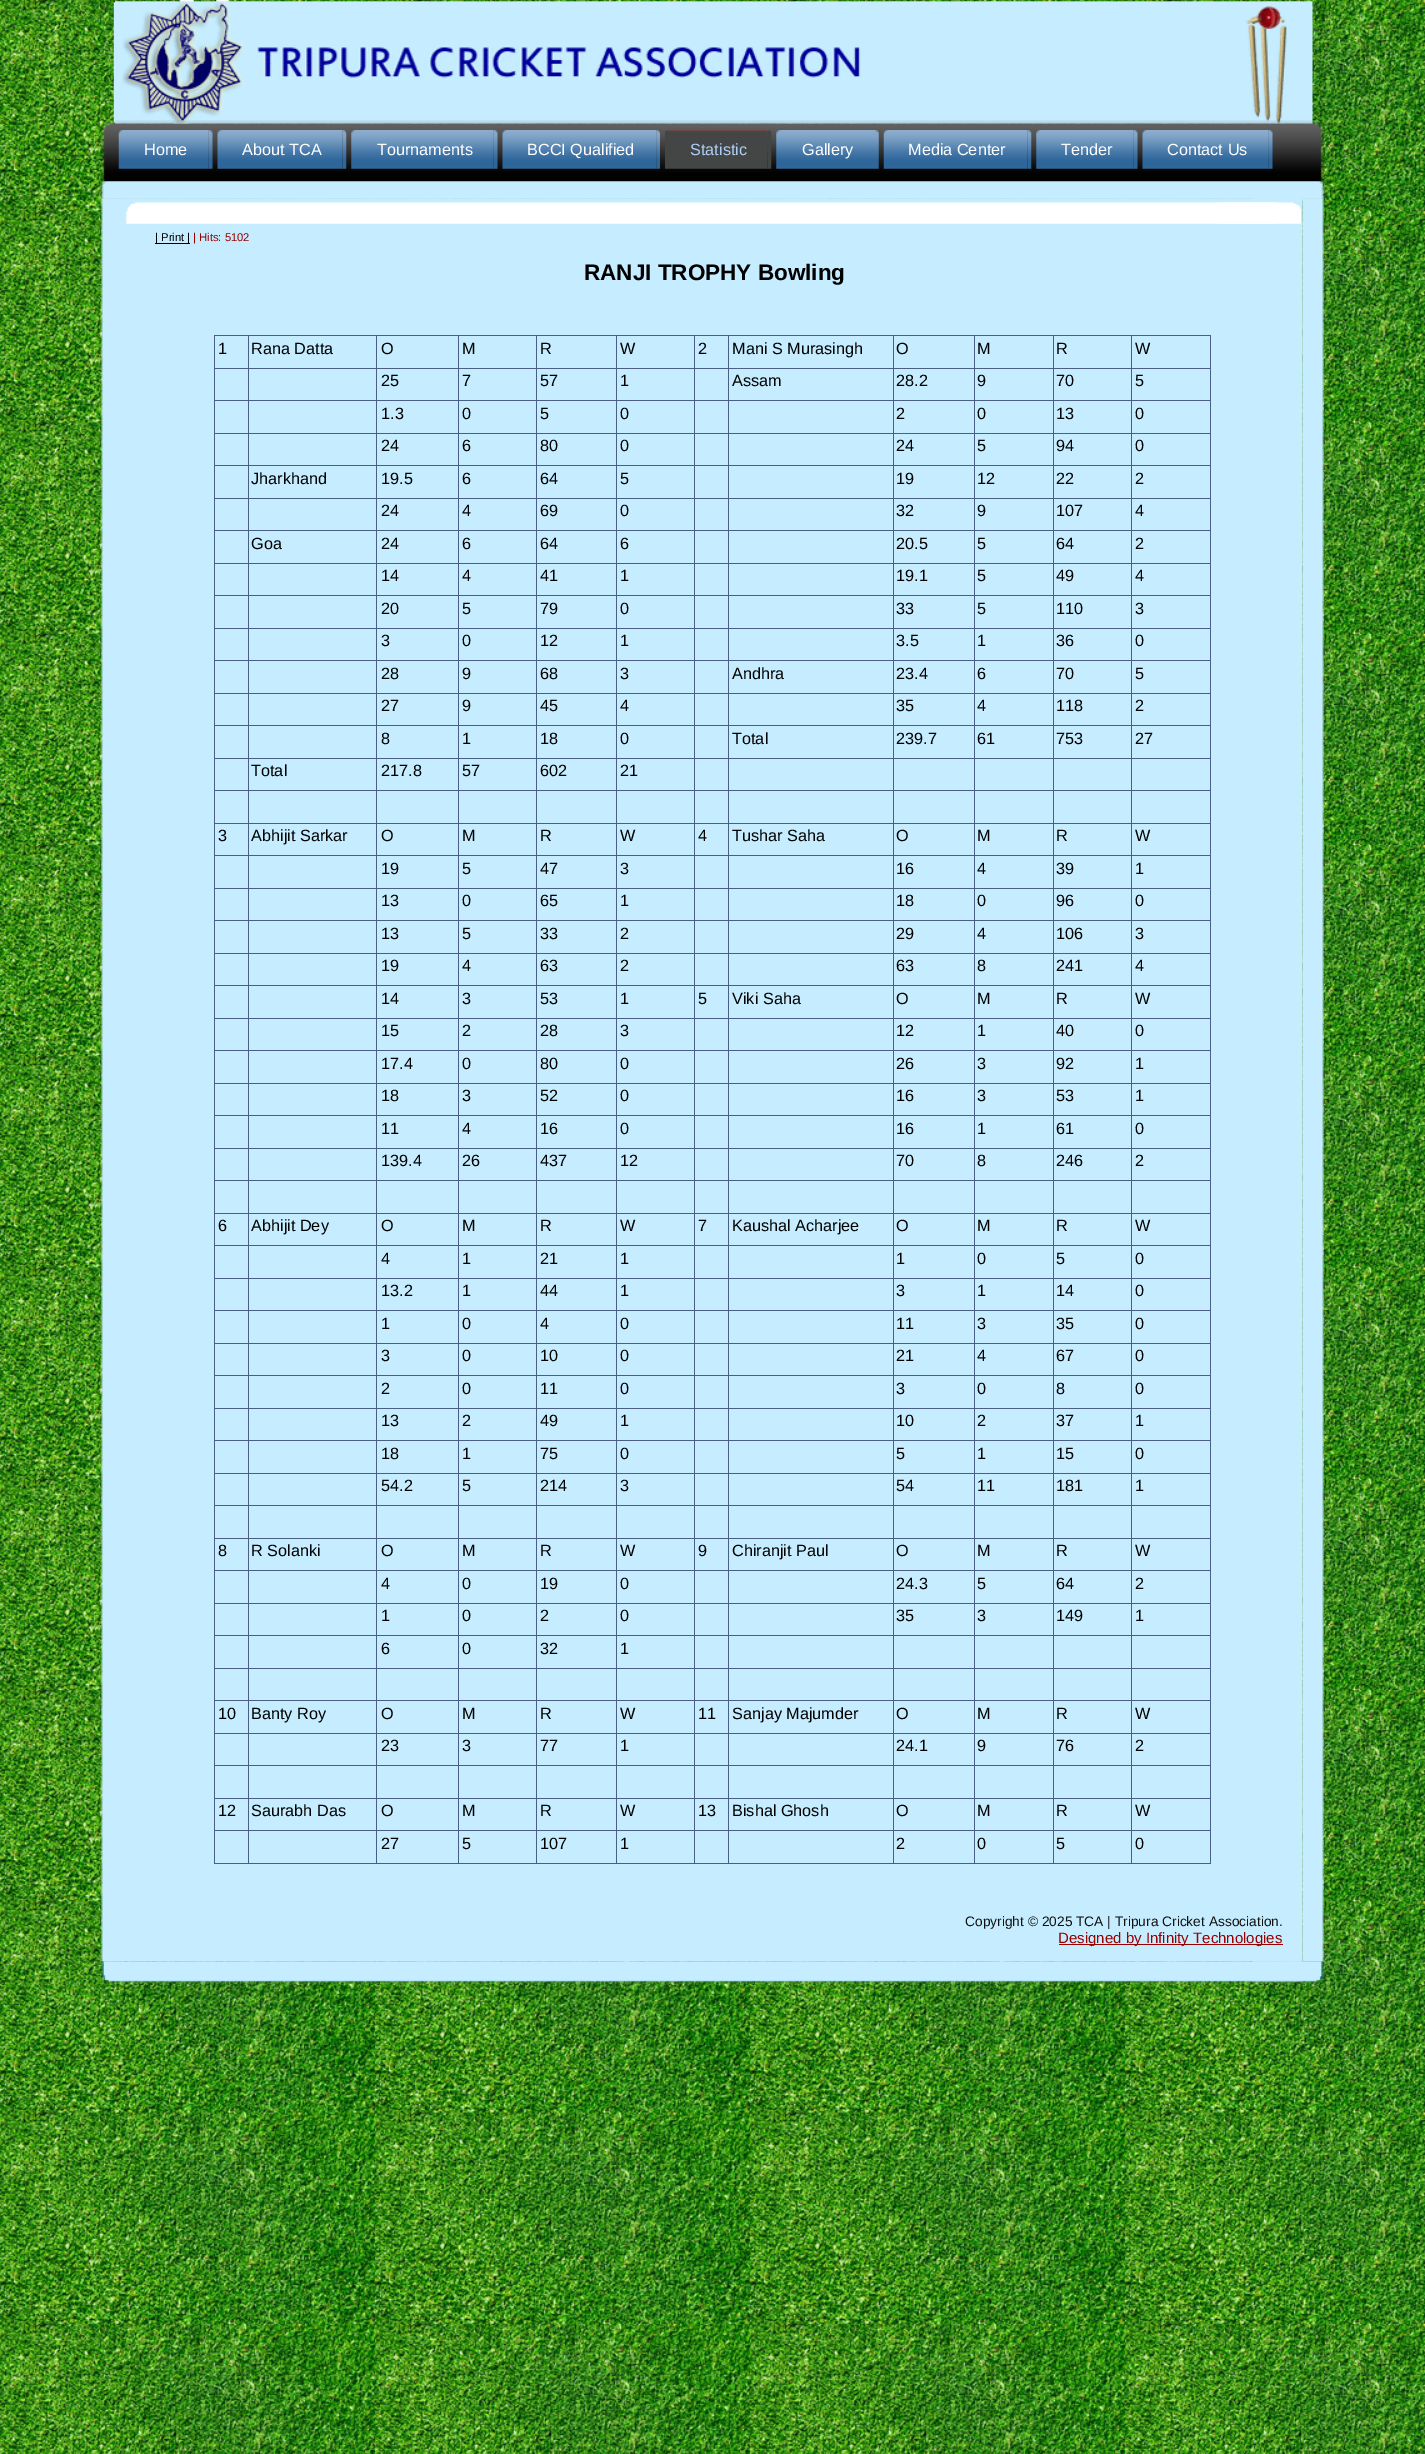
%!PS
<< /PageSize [1425 2454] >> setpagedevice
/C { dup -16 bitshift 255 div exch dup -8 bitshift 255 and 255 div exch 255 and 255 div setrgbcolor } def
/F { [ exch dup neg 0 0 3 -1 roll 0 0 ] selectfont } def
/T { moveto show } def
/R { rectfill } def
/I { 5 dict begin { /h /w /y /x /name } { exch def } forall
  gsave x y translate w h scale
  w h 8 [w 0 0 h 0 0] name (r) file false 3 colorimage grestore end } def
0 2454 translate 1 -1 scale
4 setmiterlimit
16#FFFFFF C
0 0 1425 2454 R
(1.rgb) 0 0 1425 2454 I
(2.rgb) 113 0 1200 124 I
(21.rgb) 100 178 1203 1806 I
(22.rgb) 100 178 1203 21 I
(23.rgb) 100 198 1203 1764 I
(24.rgb) 1302 198 23 1764 I
(19.rgb) 1252 177 73 1807 I
(20.rgb) 1252 177 73 22 I
(3.rgb) 100 120 1224 62 I
(4.rgb) 118 130 91 39 I
(5.rgb) 208 130 5 39 I
/LiberationSans-Regular 16.25 F
(Home) 144 155 T
(6.rgb) 217 130 126 39 I
(7.rgb) 342 130 5 39 I
(About TCA) 242 155 T
(8.rgb) 351 130 143 39 I
(5.rgb) 493 130 5 39 I
(Tournaments) 377 155 T
(9.rgb) 502 130 155 39 I
(10.rgb) 656 130 4 39 I
(BCCI Qualified) 527 155 T
(11.rgb) 665 130 103 39 I
(12.rgb) 767 130 5 39 I
16#ADCFF5 C
(Statistic) 690 155 T
(13.rgb) 776 130 99 39 I
(14.rgb) 875 130 4 39 I
16#FFFFFF C
(Gallery) 802 155 T
(15.rgb) 883 130 145 39 I
(7.rgb) 1027 130 5 39 I
(Media Center) 908 155 T
(16.rgb) 1036 130 98 39 I
(5.rgb) 1133 130 5 39 I
(Tender) 1061 155 T
(17.rgb) 1142 130 127 39 I
(5.rgb) 1268 130 5 39 I
(Contact Us) 1167 155 T
(18.rgb) 1322 126 3 56 I
(25.rgb) 126 202 1152 22 I
(26.rgb) 1217 202 84 22 I
16#000000 C
155 243 35 1 R
/LiberationSans-Regular 11.25 F
(| Print |) 155 241 T
16#990000 C
(| Hits: 5102) 193 241 T
/LiberationSans-Bold 22.5 F
16#000000 C
(RANJI TROPHY Bowling) 584 280 T
16#495F88 C
1131 335 80 1 R
1131 368 80 1 R
1131 400 80 1 R
1131 433 80 1 R
1131 465 80 1 R
1131 498 80 1 R
1131 530 80 1 R
1131 563 80 1 R
1131 595 80 1 R
1131 628 80 1 R
1131 660 80 1 R
1131 693 80 1 R
1131 725 80 1 R
1131 758 80 1 R
1131 790 80 1 R
1131 823 80 1 R
1131 855 80 1 R
1131 888 80 1 R
1131 920 80 1 R
1131 953 80 1 R
1131 985 80 1 R
1131 1018 80 1 R
1131 1050 80 1 R
1131 1083 80 1 R
1131 1115 80 1 R
1131 1148 80 1 R
1131 1180 80 1 R
1131 1213 80 1 R
1131 1245 80 1 R
1131 1278 80 1 R
1131 1310 80 1 R
1131 1343 80 1 R
1131 1375 80 1 R
1131 1408 80 1 R
1131 1440 80 1 R
1131 1473 80 1 R
1131 1505 80 1 R
1131 1538 80 1 R
1131 1570 80 1 R
1131 1603 80 1 R
1131 1635 80 1 R
1131 1668 80 1 R
1131 1700 80 1 R
1131 1733 80 1 R
1131 1765 80 1 R
1131 1798 80 1 R
1131 1830 80 1 R
1210 1830 1 34 R
1131 1863 80 1 R
1131 1830 1 34 R
1053 1830 80 1 R
1131 1798 1 33 R
1053 1798 80 1 R
1131 1765 1 34 R
1053 1765 80 1 R
1131 1733 1 33 R
1053 1733 80 1 R
1131 1700 1 34 R
1053 1700 80 1 R
1131 1668 1 33 R
1053 1668 80 1 R
1131 1635 1 34 R
1053 1635 80 1 R
1131 1603 1 33 R
1053 1603 80 1 R
1131 1570 1 34 R
1053 1570 80 1 R
1131 1538 1 33 R
1053 1538 80 1 R
1131 1505 1 34 R
1053 1505 80 1 R
1131 1473 1 33 R
1053 1473 80 1 R
1131 1440 1 34 R
1053 1440 80 1 R
1131 1408 1 33 R
1053 1408 80 1 R
1131 1375 1 34 R
1053 1375 80 1 R
1131 1343 1 33 R
1053 1343 80 1 R
1131 1310 1 34 R
1053 1310 80 1 R
1131 1278 1 33 R
1053 1278 80 1 R
1131 1245 1 34 R
1053 1245 80 1 R
1131 1213 1 33 R
1053 1213 80 1 R
1131 1180 1 34 R
1053 1180 80 1 R
1131 1148 1 33 R
1053 1148 80 1 R
1131 1115 1 34 R
1053 1115 80 1 R
1131 1083 1 33 R
1053 1083 80 1 R
1131 1050 1 34 R
1053 1050 80 1 R
1131 1018 1 33 R
1053 1018 80 1 R
1131 985 1 34 R
1053 985 80 1 R
1131 953 1 33 R
1053 953 80 1 R
1131 920 1 34 R
1053 920 80 1 R
1131 888 1 33 R
1053 888 80 1 R
1131 855 1 34 R
1053 855 80 1 R
1131 823 1 33 R
1053 823 80 1 R
1131 790 1 34 R
1053 790 80 1 R
1131 758 1 33 R
1053 758 80 1 R
1131 725 1 34 R
1053 725 80 1 R
1131 693 1 33 R
1053 693 80 1 R
1131 660 1 34 R
1053 660 80 1 R
1131 628 1 33 R
1053 628 80 1 R
1131 595 1 34 R
1053 595 80 1 R
1131 563 1 33 R
1053 563 80 1 R
1131 530 1 34 R
1053 530 80 1 R
1131 498 1 33 R
1053 498 80 1 R
1131 465 1 34 R
1053 465 80 1 R
1131 433 1 33 R
1053 433 80 1 R
1131 400 1 34 R
1053 400 80 1 R
1131 368 1 33 R
1053 368 80 1 R
1131 335 1 34 R
1053 335 80 1 R
1053 1863 80 1 R
1053 1830 1 34 R
974 1830 80 1 R
1053 1798 1 33 R
974 1798 80 1 R
1053 1765 1 34 R
974 1765 80 1 R
1053 1733 1 33 R
974 1733 80 1 R
1053 1700 1 34 R
974 1700 80 1 R
1053 1668 1 33 R
974 1668 80 1 R
1053 1635 1 34 R
974 1635 80 1 R
1053 1603 1 33 R
974 1603 80 1 R
1053 1570 1 34 R
974 1570 80 1 R
1053 1538 1 33 R
974 1538 80 1 R
1053 1505 1 34 R
974 1505 80 1 R
1053 1473 1 33 R
974 1473 80 1 R
1053 1440 1 34 R
974 1440 80 1 R
1053 1408 1 33 R
974 1408 80 1 R
1053 1375 1 34 R
974 1375 80 1 R
1053 1343 1 33 R
974 1343 80 1 R
1053 1310 1 34 R
974 1310 80 1 R
1053 1278 1 33 R
974 1278 80 1 R
1053 1245 1 34 R
974 1245 80 1 R
1053 1213 1 33 R
974 1213 80 1 R
1053 1180 1 34 R
974 1180 80 1 R
1053 1148 1 33 R
974 1148 80 1 R
1053 1115 1 34 R
974 1115 80 1 R
1053 1083 1 33 R
974 1083 80 1 R
1053 1050 1 34 R
974 1050 80 1 R
1053 1018 1 33 R
974 1018 80 1 R
1053 985 1 34 R
974 985 80 1 R
1053 953 1 33 R
974 953 80 1 R
1053 920 1 34 R
974 920 80 1 R
1053 888 1 33 R
974 888 80 1 R
1053 855 1 34 R
974 855 80 1 R
1053 823 1 33 R
974 823 80 1 R
1053 790 1 34 R
974 790 80 1 R
1053 758 1 33 R
974 758 80 1 R
1053 725 1 34 R
974 725 80 1 R
1053 693 1 33 R
974 693 80 1 R
1053 660 1 34 R
974 660 80 1 R
1053 628 1 33 R
974 628 80 1 R
1053 595 1 34 R
974 595 80 1 R
1053 563 1 33 R
974 563 80 1 R
1053 530 1 34 R
974 530 80 1 R
1053 498 1 33 R
974 498 80 1 R
1053 465 1 34 R
974 465 80 1 R
1053 433 1 33 R
974 433 80 1 R
1053 400 1 34 R
974 400 80 1 R
1053 368 1 33 R
974 368 80 1 R
1053 335 1 34 R
974 335 80 1 R
974 1863 80 1 R
974 1830 1 34 R
893 1830 82 1 R
974 1798 1 33 R
893 1798 82 1 R
974 1765 1 34 R
893 1765 82 1 R
974 1733 1 33 R
893 1733 82 1 R
974 1700 1 34 R
893 1700 82 1 R
974 1668 1 33 R
893 1668 82 1 R
974 1635 1 34 R
893 1635 82 1 R
974 1603 1 33 R
893 1603 82 1 R
974 1570 1 34 R
893 1570 82 1 R
974 1538 1 33 R
893 1538 82 1 R
974 1505 1 34 R
893 1505 82 1 R
974 1473 1 33 R
893 1473 82 1 R
974 1440 1 34 R
893 1440 82 1 R
974 1408 1 33 R
893 1408 82 1 R
974 1375 1 34 R
893 1375 82 1 R
974 1343 1 33 R
893 1343 82 1 R
974 1310 1 34 R
893 1310 82 1 R
974 1278 1 33 R
893 1278 82 1 R
974 1245 1 34 R
893 1245 82 1 R
974 1213 1 33 R
893 1213 82 1 R
974 1180 1 34 R
893 1180 82 1 R
974 1148 1 33 R
893 1148 82 1 R
974 1115 1 34 R
893 1115 82 1 R
974 1083 1 33 R
893 1083 82 1 R
974 1050 1 34 R
893 1050 82 1 R
974 1018 1 33 R
893 1018 82 1 R
974 985 1 34 R
893 985 82 1 R
974 953 1 33 R
893 953 82 1 R
974 920 1 34 R
893 920 82 1 R
974 888 1 33 R
893 888 82 1 R
974 855 1 34 R
893 855 82 1 R
974 823 1 33 R
893 823 82 1 R
974 790 1 34 R
893 790 82 1 R
974 758 1 33 R
893 758 82 1 R
974 725 1 34 R
893 725 82 1 R
974 693 1 33 R
893 693 82 1 R
974 660 1 34 R
893 660 82 1 R
974 628 1 33 R
893 628 82 1 R
974 595 1 34 R
893 595 82 1 R
974 563 1 33 R
893 563 82 1 R
974 530 1 34 R
893 530 82 1 R
974 498 1 33 R
893 498 82 1 R
974 465 1 34 R
893 465 82 1 R
974 433 1 33 R
893 433 82 1 R
974 400 1 34 R
893 400 82 1 R
974 368 1 33 R
893 368 82 1 R
974 335 1 34 R
893 335 82 1 R
893 1863 82 1 R
893 1830 1 34 R
728 1830 166 1 R
893 1798 1 33 R
728 1798 166 1 R
893 1765 1 34 R
728 1765 166 1 R
893 1733 1 33 R
728 1733 166 1 R
893 1700 1 34 R
728 1700 166 1 R
893 1668 1 33 R
728 1668 166 1 R
893 1635 1 34 R
728 1635 166 1 R
893 1603 1 33 R
728 1603 166 1 R
893 1570 1 34 R
728 1570 166 1 R
893 1538 1 33 R
728 1538 166 1 R
893 1505 1 34 R
728 1505 166 1 R
893 1473 1 33 R
728 1473 166 1 R
893 1440 1 34 R
728 1440 166 1 R
893 1408 1 33 R
728 1408 166 1 R
893 1375 1 34 R
728 1375 166 1 R
893 1343 1 33 R
728 1343 166 1 R
893 1310 1 34 R
728 1310 166 1 R
893 1278 1 33 R
728 1278 166 1 R
893 1245 1 34 R
728 1245 166 1 R
893 1213 1 33 R
728 1213 166 1 R
893 1180 1 34 R
728 1180 166 1 R
893 1148 1 33 R
728 1148 166 1 R
893 1115 1 34 R
728 1115 166 1 R
893 1083 1 33 R
728 1083 166 1 R
893 1050 1 34 R
728 1050 166 1 R
893 1018 1 33 R
728 1018 166 1 R
893 985 1 34 R
728 985 166 1 R
893 953 1 33 R
728 953 166 1 R
893 920 1 34 R
728 920 166 1 R
893 888 1 33 R
728 888 166 1 R
893 855 1 34 R
728 855 166 1 R
893 823 1 33 R
728 823 166 1 R
893 790 1 34 R
728 790 166 1 R
893 758 1 33 R
728 758 166 1 R
893 725 1 34 R
728 725 166 1 R
893 693 1 33 R
728 693 166 1 R
893 660 1 34 R
728 660 166 1 R
893 628 1 33 R
728 628 166 1 R
893 595 1 34 R
728 595 166 1 R
893 563 1 33 R
728 563 166 1 R
893 530 1 34 R
728 530 166 1 R
893 498 1 33 R
728 498 166 1 R
893 465 1 34 R
728 465 166 1 R
893 433 1 33 R
728 433 166 1 R
893 400 1 34 R
728 400 166 1 R
893 368 1 33 R
728 368 166 1 R
893 335 1 34 R
728 335 166 1 R
728 1863 166 1 R
728 1830 1 34 R
694 1830 35 1 R
728 1798 1 33 R
694 1798 35 1 R
728 1765 1 34 R
694 1765 35 1 R
728 1733 1 33 R
694 1733 35 1 R
728 1700 1 34 R
694 1700 35 1 R
728 1668 1 33 R
694 1668 35 1 R
728 1635 1 34 R
694 1635 35 1 R
728 1603 1 33 R
694 1603 35 1 R
728 1570 1 34 R
694 1570 35 1 R
728 1538 1 33 R
694 1538 35 1 R
728 1505 1 34 R
694 1505 35 1 R
728 1473 1 33 R
694 1473 35 1 R
728 1440 1 34 R
694 1440 35 1 R
728 1408 1 33 R
694 1408 35 1 R
728 1375 1 34 R
694 1375 35 1 R
728 1343 1 33 R
694 1343 35 1 R
728 1310 1 34 R
694 1310 35 1 R
728 1278 1 33 R
694 1278 35 1 R
728 1245 1 34 R
694 1245 35 1 R
728 1213 1 33 R
694 1213 35 1 R
728 1180 1 34 R
694 1180 35 1 R
728 1148 1 33 R
694 1148 35 1 R
728 1115 1 34 R
694 1115 35 1 R
728 1083 1 33 R
694 1083 35 1 R
728 1050 1 34 R
694 1050 35 1 R
728 1018 1 33 R
694 1018 35 1 R
728 985 1 34 R
694 985 35 1 R
728 953 1 33 R
694 953 35 1 R
728 920 1 34 R
694 920 35 1 R
728 888 1 33 R
694 888 35 1 R
728 855 1 34 R
694 855 35 1 R
728 823 1 33 R
694 823 35 1 R
728 790 1 34 R
694 790 35 1 R
728 758 1 33 R
694 758 35 1 R
728 725 1 34 R
694 725 35 1 R
728 693 1 33 R
694 693 35 1 R
728 660 1 34 R
694 660 35 1 R
728 628 1 33 R
694 628 35 1 R
728 595 1 34 R
694 595 35 1 R
728 563 1 33 R
694 563 35 1 R
728 530 1 34 R
694 530 35 1 R
728 498 1 33 R
694 498 35 1 R
728 465 1 34 R
694 465 35 1 R
728 433 1 33 R
694 433 35 1 R
728 400 1 34 R
694 400 35 1 R
728 368 1 33 R
694 368 35 1 R
728 335 1 34 R
694 335 35 1 R
694 1863 35 1 R
694 1830 1 34 R
616 1830 79 1 R
694 1798 1 33 R
616 1798 79 1 R
694 1765 1 34 R
616 1765 79 1 R
694 1733 1 33 R
616 1733 79 1 R
694 1700 1 34 R
616 1700 79 1 R
694 1668 1 33 R
616 1668 79 1 R
694 1635 1 34 R
616 1635 79 1 R
694 1603 1 33 R
616 1603 79 1 R
694 1570 1 34 R
616 1570 79 1 R
694 1538 1 33 R
616 1538 79 1 R
694 1505 1 34 R
616 1505 79 1 R
694 1473 1 33 R
616 1473 79 1 R
694 1440 1 34 R
616 1440 79 1 R
694 1408 1 33 R
616 1408 79 1 R
694 1375 1 34 R
616 1375 79 1 R
694 1343 1 33 R
616 1343 79 1 R
694 1310 1 34 R
616 1310 79 1 R
694 1278 1 33 R
616 1278 79 1 R
694 1245 1 34 R
616 1245 79 1 R
694 1213 1 33 R
616 1213 79 1 R
694 1180 1 34 R
616 1180 79 1 R
694 1148 1 33 R
616 1148 79 1 R
694 1115 1 34 R
616 1115 79 1 R
694 1083 1 33 R
616 1083 79 1 R
694 1050 1 34 R
616 1050 79 1 R
694 1018 1 33 R
616 1018 79 1 R
694 985 1 34 R
616 985 79 1 R
694 953 1 33 R
616 953 79 1 R
694 920 1 34 R
616 920 79 1 R
694 888 1 33 R
616 888 79 1 R
694 855 1 34 R
616 855 79 1 R
694 823 1 33 R
616 823 79 1 R
694 790 1 34 R
616 790 79 1 R
694 758 1 33 R
616 758 79 1 R
694 725 1 34 R
616 725 79 1 R
694 693 1 33 R
616 693 79 1 R
694 660 1 34 R
616 660 79 1 R
694 628 1 33 R
616 628 79 1 R
694 595 1 34 R
616 595 79 1 R
694 563 1 33 R
616 563 79 1 R
694 530 1 34 R
616 530 79 1 R
694 498 1 33 R
616 498 79 1 R
694 465 1 34 R
616 465 79 1 R
694 433 1 33 R
616 433 79 1 R
694 400 1 34 R
616 400 79 1 R
694 368 1 33 R
616 368 79 1 R
694 335 1 34 R
616 335 79 1 R
616 1863 79 1 R
616 1830 1 34 R
536 1830 82 1 R
616 1798 1 33 R
536 1798 82 1 R
616 1765 1 34 R
536 1765 82 1 R
616 1733 1 33 R
536 1733 82 1 R
616 1700 1 34 R
536 1700 82 1 R
616 1668 1 33 R
536 1668 82 1 R
616 1635 1 34 R
536 1635 82 1 R
616 1603 1 33 R
536 1603 82 1 R
616 1570 1 34 R
536 1570 82 1 R
616 1538 1 33 R
536 1538 82 1 R
616 1505 1 34 R
536 1505 82 1 R
616 1473 1 33 R
536 1473 82 1 R
616 1440 1 34 R
536 1440 82 1 R
616 1408 1 33 R
536 1408 82 1 R
616 1375 1 34 R
536 1375 82 1 R
616 1343 1 33 R
536 1343 82 1 R
616 1310 1 34 R
536 1310 82 1 R
616 1278 1 33 R
536 1278 82 1 R
616 1245 1 34 R
536 1245 82 1 R
616 1213 1 33 R
536 1213 82 1 R
616 1180 1 34 R
536 1180 82 1 R
616 1148 1 33 R
536 1148 82 1 R
616 1115 1 34 R
536 1115 82 1 R
616 1083 1 33 R
536 1083 82 1 R
616 1050 1 34 R
536 1050 82 1 R
616 1018 1 33 R
536 1018 82 1 R
616 985 1 34 R
536 985 82 1 R
616 953 1 33 R
536 953 82 1 R
616 920 1 34 R
536 920 82 1 R
616 888 1 33 R
536 888 82 1 R
616 855 1 34 R
536 855 82 1 R
616 823 1 33 R
536 823 82 1 R
616 790 1 34 R
536 790 82 1 R
616 758 1 33 R
536 758 82 1 R
616 725 1 34 R
536 725 82 1 R
616 693 1 33 R
536 693 82 1 R
616 660 1 34 R
536 660 82 1 R
616 628 1 33 R
536 628 82 1 R
616 595 1 34 R
536 595 82 1 R
616 563 1 33 R
536 563 82 1 R
616 530 1 34 R
536 530 82 1 R
616 498 1 33 R
536 498 82 1 R
616 465 1 34 R
536 465 82 1 R
616 433 1 33 R
536 433 82 1 R
616 400 1 34 R
536 400 82 1 R
616 368 1 33 R
536 368 82 1 R
616 335 1 34 R
536 335 82 1 R
536 1863 82 1 R
536 1830 1 34 R
458 1830 80 1 R
536 1798 1 33 R
458 1798 80 1 R
536 1765 1 34 R
458 1765 80 1 R
536 1733 1 33 R
458 1733 80 1 R
536 1700 1 34 R
458 1700 80 1 R
536 1668 1 33 R
458 1668 80 1 R
536 1635 1 34 R
458 1635 80 1 R
536 1603 1 33 R
458 1603 80 1 R
536 1570 1 34 R
458 1570 80 1 R
536 1538 1 33 R
458 1538 80 1 R
536 1505 1 34 R
458 1505 80 1 R
536 1473 1 33 R
458 1473 80 1 R
536 1440 1 34 R
458 1440 80 1 R
536 1408 1 33 R
458 1408 80 1 R
536 1375 1 34 R
458 1375 80 1 R
536 1343 1 33 R
458 1343 80 1 R
536 1310 1 34 R
458 1310 80 1 R
536 1278 1 33 R
458 1278 80 1 R
536 1245 1 34 R
458 1245 80 1 R
536 1213 1 33 R
458 1213 80 1 R
536 1180 1 34 R
458 1180 80 1 R
536 1148 1 33 R
458 1148 80 1 R
536 1115 1 34 R
458 1115 80 1 R
536 1083 1 33 R
458 1083 80 1 R
536 1050 1 34 R
458 1050 80 1 R
536 1018 1 33 R
458 1018 80 1 R
536 985 1 34 R
458 985 80 1 R
536 953 1 33 R
458 953 80 1 R
536 920 1 34 R
458 920 80 1 R
536 888 1 33 R
458 888 80 1 R
536 855 1 34 R
458 855 80 1 R
536 823 1 33 R
458 823 80 1 R
536 790 1 34 R
458 790 80 1 R
536 758 1 33 R
458 758 80 1 R
536 725 1 34 R
458 725 80 1 R
536 693 1 33 R
458 693 80 1 R
536 660 1 34 R
458 660 80 1 R
536 628 1 33 R
458 628 80 1 R
536 595 1 34 R
458 595 80 1 R
536 563 1 33 R
458 563 80 1 R
536 530 1 34 R
458 530 80 1 R
536 498 1 33 R
458 498 80 1 R
536 465 1 34 R
458 465 80 1 R
536 433 1 33 R
458 433 80 1 R
536 400 1 34 R
458 400 80 1 R
536 368 1 33 R
458 368 80 1 R
536 335 1 34 R
458 335 80 1 R
458 1863 80 1 R
458 1830 1 34 R
376 1830 83 1 R
458 1798 1 33 R
376 1798 83 1 R
458 1765 1 34 R
376 1765 83 1 R
458 1733 1 33 R
376 1733 83 1 R
458 1700 1 34 R
376 1700 83 1 R
458 1668 1 33 R
376 1668 83 1 R
458 1635 1 34 R
376 1635 83 1 R
458 1603 1 33 R
376 1603 83 1 R
458 1570 1 34 R
376 1570 83 1 R
458 1538 1 33 R
376 1538 83 1 R
458 1505 1 34 R
376 1505 83 1 R
458 1473 1 33 R
376 1473 83 1 R
458 1440 1 34 R
376 1440 83 1 R
458 1408 1 33 R
376 1408 83 1 R
458 1375 1 34 R
376 1375 83 1 R
458 1343 1 33 R
376 1343 83 1 R
458 1310 1 34 R
376 1310 83 1 R
458 1278 1 33 R
376 1278 83 1 R
458 1245 1 34 R
376 1245 83 1 R
458 1213 1 33 R
376 1213 83 1 R
458 1180 1 34 R
376 1180 83 1 R
458 1148 1 33 R
376 1148 83 1 R
458 1115 1 34 R
376 1115 83 1 R
458 1083 1 33 R
376 1083 83 1 R
458 1050 1 34 R
376 1050 83 1 R
458 1018 1 33 R
376 1018 83 1 R
458 985 1 34 R
376 985 83 1 R
458 953 1 33 R
376 953 83 1 R
458 920 1 34 R
376 920 83 1 R
458 888 1 33 R
376 888 83 1 R
458 855 1 34 R
376 855 83 1 R
458 823 1 33 R
376 823 83 1 R
458 790 1 34 R
376 790 83 1 R
458 758 1 33 R
376 758 83 1 R
458 725 1 34 R
376 725 83 1 R
458 693 1 33 R
376 693 83 1 R
458 660 1 34 R
376 660 83 1 R
458 628 1 33 R
376 628 83 1 R
458 595 1 34 R
376 595 83 1 R
458 563 1 33 R
376 563 83 1 R
458 530 1 34 R
376 530 83 1 R
458 498 1 33 R
376 498 83 1 R
458 465 1 34 R
376 465 83 1 R
458 433 1 33 R
376 433 83 1 R
458 400 1 34 R
376 400 83 1 R
458 368 1 33 R
376 368 83 1 R
458 335 1 34 R
376 335 83 1 R
376 1863 83 1 R
376 1830 1 34 R
248 1830 130 1 R
376 1798 1 33 R
248 1798 130 1 R
376 1765 1 34 R
248 1765 130 1 R
376 1733 1 33 R
248 1733 130 1 R
376 1700 1 34 R
248 1700 130 1 R
376 1668 1 33 R
248 1668 130 1 R
376 1635 1 34 R
248 1635 130 1 R
376 1603 1 33 R
248 1603 130 1 R
376 1570 1 34 R
248 1570 130 1 R
376 1538 1 33 R
248 1538 130 1 R
376 1505 1 34 R
248 1505 130 1 R
376 1473 1 33 R
248 1473 130 1 R
376 1440 1 34 R
248 1440 130 1 R
376 1408 1 33 R
248 1408 130 1 R
376 1375 1 34 R
248 1375 130 1 R
376 1343 1 33 R
248 1343 130 1 R
376 1310 1 34 R
248 1310 130 1 R
376 1278 1 33 R
248 1278 130 1 R
376 1245 1 34 R
248 1245 130 1 R
376 1213 1 33 R
248 1213 130 1 R
376 1180 1 34 R
248 1180 130 1 R
376 1148 1 33 R
248 1148 130 1 R
376 1115 1 34 R
248 1115 130 1 R
376 1083 1 33 R
248 1083 130 1 R
376 1050 1 34 R
248 1050 130 1 R
376 1018 1 33 R
248 1018 130 1 R
376 985 1 34 R
248 985 130 1 R
376 953 1 33 R
248 953 130 1 R
376 920 1 34 R
248 920 130 1 R
376 888 1 33 R
248 888 130 1 R
376 855 1 34 R
248 855 130 1 R
376 823 1 33 R
248 823 130 1 R
376 790 1 34 R
248 790 130 1 R
376 758 1 33 R
248 758 130 1 R
376 725 1 34 R
248 725 130 1 R
376 693 1 33 R
248 693 130 1 R
376 660 1 34 R
248 660 130 1 R
376 628 1 33 R
248 628 130 1 R
376 595 1 34 R
248 595 130 1 R
376 563 1 33 R
248 563 130 1 R
376 530 1 34 R
248 530 130 1 R
376 498 1 33 R
248 498 130 1 R
376 465 1 34 R
248 465 130 1 R
376 433 1 33 R
248 433 130 1 R
376 400 1 34 R
248 400 130 1 R
376 368 1 33 R
248 368 130 1 R
376 335 1 34 R
248 335 130 1 R
248 1863 130 1 R
248 1830 1 34 R
214 1830 35 1 R
248 1798 1 33 R
214 1798 35 1 R
248 1765 1 34 R
214 1765 35 1 R
248 1733 1 33 R
214 1733 35 1 R
248 1700 1 34 R
214 1700 35 1 R
248 1668 1 33 R
214 1668 35 1 R
248 1635 1 34 R
214 1635 35 1 R
248 1603 1 33 R
214 1603 35 1 R
248 1570 1 34 R
214 1570 35 1 R
248 1538 1 33 R
214 1538 35 1 R
248 1505 1 34 R
214 1505 35 1 R
248 1473 1 33 R
214 1473 35 1 R
248 1440 1 34 R
214 1440 35 1 R
248 1408 1 33 R
214 1408 35 1 R
248 1375 1 34 R
214 1375 35 1 R
248 1343 1 33 R
214 1343 35 1 R
248 1310 1 34 R
214 1310 35 1 R
248 1278 1 33 R
214 1278 35 1 R
248 1245 1 34 R
214 1245 35 1 R
248 1213 1 33 R
214 1213 35 1 R
248 1180 1 34 R
214 1180 35 1 R
248 1148 1 33 R
214 1148 35 1 R
248 1115 1 34 R
214 1115 35 1 R
248 1083 1 33 R
214 1083 35 1 R
248 1050 1 34 R
214 1050 35 1 R
248 1018 1 33 R
214 1018 35 1 R
248 985 1 34 R
214 985 35 1 R
248 953 1 33 R
214 953 35 1 R
248 920 1 34 R
214 920 35 1 R
248 888 1 33 R
214 888 35 1 R
248 855 1 34 R
214 855 35 1 R
248 823 1 33 R
214 823 35 1 R
248 790 1 34 R
214 790 35 1 R
248 758 1 33 R
214 758 35 1 R
248 725 1 34 R
214 725 35 1 R
248 693 1 33 R
214 693 35 1 R
248 660 1 34 R
214 660 35 1 R
248 628 1 33 R
214 628 35 1 R
248 595 1 34 R
214 595 35 1 R
248 563 1 33 R
214 563 35 1 R
248 530 1 34 R
214 530 35 1 R
248 498 1 33 R
214 498 35 1 R
248 465 1 34 R
214 465 35 1 R
248 433 1 33 R
214 433 35 1 R
248 400 1 34 R
214 400 35 1 R
248 368 1 33 R
214 368 35 1 R
248 335 1 34 R
214 335 35 1 R
214 1863 35 1 R
214 1830 1 34 R
214 1798 1 33 R
214 1765 1 34 R
214 1733 1 33 R
214 1700 1 34 R
214 1668 1 33 R
214 1635 1 34 R
214 1603 1 33 R
214 1570 1 34 R
214 1538 1 33 R
214 1505 1 34 R
214 1473 1 33 R
214 1440 1 34 R
214 1408 1 33 R
214 1375 1 34 R
214 1343 1 33 R
214 1310 1 34 R
214 1278 1 33 R
214 1245 1 34 R
214 1213 1 33 R
214 1180 1 34 R
214 1148 1 33 R
214 1115 1 34 R
214 1083 1 33 R
214 1050 1 34 R
214 1018 1 33 R
214 985 1 34 R
214 953 1 33 R
214 920 1 34 R
214 888 1 33 R
214 855 1 34 R
214 823 1 33 R
214 790 1 34 R
214 758 1 33 R
214 725 1 34 R
214 693 1 33 R
214 660 1 34 R
214 628 1 33 R
214 595 1 34 R
214 563 1 33 R
214 530 1 34 R
214 498 1 33 R
214 465 1 34 R
214 433 1 33 R
214 400 1 34 R
214 368 1 33 R
214 335 1 34 R
/LiberationSans-Regular 16.25 F
16#000000 C
(1) 218 354 T
(Rana Datta) 251 354 T
(O) 381 354 T
(M) 462 354 T
(R) 540 354 T
(W) 620 354 T
(2) 698 354 T
(Mani S Murasingh) 732 354 T
(O) 896 354 T
(M) 977 354 T
(R) 1056 354 T
16#495F88 C
1210 1798 1 33 R
1210 1765 1 34 R
1210 1733 1 33 R
1210 1700 1 34 R
1210 1668 1 33 R
1210 1635 1 34 R
1210 1603 1 33 R
1210 1570 1 34 R
1210 1538 1 33 R
1210 1505 1 34 R
1210 1473 1 33 R
1210 1440 1 34 R
1210 1408 1 33 R
1210 1375 1 34 R
1210 1343 1 33 R
1210 1310 1 34 R
1210 1278 1 33 R
1210 1245 1 34 R
1210 1213 1 33 R
1210 1180 1 34 R
1210 1148 1 33 R
1210 1115 1 34 R
1210 1083 1 33 R
1210 1050 1 34 R
1210 1018 1 33 R
1210 985 1 34 R
1210 953 1 33 R
1210 920 1 34 R
1210 888 1 33 R
1210 855 1 34 R
1210 823 1 33 R
1210 790 1 34 R
1210 758 1 33 R
1210 725 1 34 R
1210 693 1 33 R
1210 660 1 34 R
1210 628 1 33 R
1210 595 1 34 R
1210 563 1 33 R
1210 530 1 34 R
1210 498 1 33 R
1210 465 1 34 R
1210 433 1 33 R
1210 400 1 34 R
1210 368 1 33 R
1210 335 1 34 R
16#000000 C
(W) 1135 354 T
(25) 381 386 T
(7) 462 386 T
(57) 540 386 T
(1) 620 386 T
(Assam) 732 386 T
(28.2) 896 386 T
(9) 977 386 T
(70) 1056 386 T
(5) 1135 386 T
(1.3) 381 419 T
(0) 462 419 T
(5) 540 419 T
(0) 620 419 T
(2) 896 419 T
(0) 977 419 T
(13) 1056 419 T
(0) 1135 419 T
(24) 381 451 T
(6) 462 451 T
(80) 540 451 T
(0) 620 451 T
(24) 896 451 T
(5) 977 451 T
(94) 1056 451 T
(0) 1135 451 T
(Jharkhand) 251 484 T
(19.5) 381 484 T
(6) 462 484 T
(64) 540 484 T
(5) 620 484 T
(19) 896 484 T
(12) 977 484 T
(22) 1056 484 T
(2) 1135 484 T
(24) 381 516 T
(4) 462 516 T
(69) 540 516 T
(0) 620 516 T
(32) 896 516 T
(9) 977 516 T
(107) 1056 516 T
(4) 1135 516 T
(Goa) 251 549 T
(24) 381 549 T
(6) 462 549 T
(64) 540 549 T
(6) 620 549 T
(20.5) 896 549 T
(5) 977 549 T
(64) 1056 549 T
(2) 1135 549 T
(14) 381 581 T
(4) 462 581 T
(41) 540 581 T
(1) 620 581 T
(19.1) 896 581 T
(5) 977 581 T
(49) 1056 581 T
(4) 1135 581 T
(20) 381 614 T
(5) 462 614 T
(79) 540 614 T
(0) 620 614 T
(33) 896 614 T
(5) 977 614 T
(110) 1056 614 T
(3) 1135 614 T
(3) 381 646 T
(0) 462 646 T
(12) 540 646 T
(1) 620 646 T
(3.5) 896 646 T
(1) 977 646 T
(36) 1056 646 T
(0) 1135 646 T
(28) 381 679 T
(9) 462 679 T
(68) 540 679 T
(3) 620 679 T
(Andhra) 732 679 T
(23.4) 896 679 T
(6) 977 679 T
(70) 1056 679 T
(5) 1135 679 T
(27) 381 711 T
(9) 462 711 T
(45) 540 711 T
(4) 620 711 T
(35) 896 711 T
(4) 977 711 T
(118) 1056 711 T
(2) 1135 711 T
(8) 381 744 T
(1) 462 744 T
(18) 540 744 T
(0) 620 744 T
(Total) 732 744 T
(239.7) 896 744 T
(61) 977 744 T
(753) 1056 744 T
(27) 1135 744 T
(Total) 251 776 T
(217.8) 381 776 T
(57) 462 776 T
(602) 540 776 T
(21) 620 776 T
(3) 218 841 T
(Abhijit Sarkar) 251 841 T
(O) 381 841 T
(M) 462 841 T
(R) 540 841 T
(W) 620 841 T
(4) 698 841 T
(Tushar Saha) 732 841 T
(O) 896 841 T
(M) 977 841 T
(R) 1056 841 T
(W) 1135 841 T
(19) 381 874 T
(5) 462 874 T
(47) 540 874 T
(3) 620 874 T
(16) 896 874 T
(4) 977 874 T
(39) 1056 874 T
(1) 1135 874 T
(13) 381 906 T
(0) 462 906 T
(65) 540 906 T
(1) 620 906 T
(18) 896 906 T
(0) 977 906 T
(96) 1056 906 T
(0) 1135 906 T
(13) 381 939 T
(5) 462 939 T
(33) 540 939 T
(2) 620 939 T
(29) 896 939 T
(4) 977 939 T
(106) 1056 939 T
(3) 1135 939 T
(19) 381 971 T
(4) 462 971 T
(63) 540 971 T
(2) 620 971 T
(63) 896 971 T
(8) 977 971 T
(241) 1056 971 T
(4) 1135 971 T
(14) 381 1004 T
(3) 462 1004 T
(53) 540 1004 T
(1) 620 1004 T
(5) 698 1004 T
(Viki Saha) 732 1004 T
(O) 896 1004 T
(M) 977 1004 T
(R) 1056 1004 T
(W) 1135 1004 T
(15) 381 1036 T
(2) 462 1036 T
(28) 540 1036 T
(3) 620 1036 T
(12) 896 1036 T
(1) 977 1036 T
(40) 1056 1036 T
(0) 1135 1036 T
(17.4) 381 1069 T
(0) 462 1069 T
(80) 540 1069 T
(0) 620 1069 T
(26) 896 1069 T
(3) 977 1069 T
(92) 1056 1069 T
(1) 1135 1069 T
(18) 381 1101 T
(3) 462 1101 T
(52) 540 1101 T
(0) 620 1101 T
(16) 896 1101 T
(3) 977 1101 T
(53) 1056 1101 T
(1) 1135 1101 T
(11) 381 1134 T
(4) 462 1134 T
(16) 540 1134 T
(0) 620 1134 T
(16) 896 1134 T
(1) 977 1134 T
(61) 1056 1134 T
(0) 1135 1134 T
(139.4) 381 1166 T
(26) 462 1166 T
(437) 540 1166 T
(12) 620 1166 T
(70) 896 1166 T
(8) 977 1166 T
(246) 1056 1166 T
(2) 1135 1166 T
(6) 218 1231 T
(Abhijit Dey) 251 1231 T
(O) 381 1231 T
(M) 462 1231 T
(R) 540 1231 T
(W) 620 1231 T
(7) 698 1231 T
(Kaushal Acharjee) 732 1231 T
(O) 896 1231 T
(M) 977 1231 T
(R) 1056 1231 T
(W) 1135 1231 T
(4) 381 1264 T
(1) 462 1264 T
(21) 540 1264 T
(1) 620 1264 T
(1) 896 1264 T
(0) 977 1264 T
(5) 1056 1264 T
(0) 1135 1264 T
(13.2) 381 1296 T
(1) 462 1296 T
(44) 540 1296 T
(1) 620 1296 T
(3) 896 1296 T
(1) 977 1296 T
(14) 1056 1296 T
(0) 1135 1296 T
(1) 381 1329 T
(0) 462 1329 T
(4) 540 1329 T
(0) 620 1329 T
(11) 896 1329 T
(3) 977 1329 T
(35) 1056 1329 T
(0) 1135 1329 T
(3) 381 1361 T
(0) 462 1361 T
(10) 540 1361 T
(0) 620 1361 T
(21) 896 1361 T
(4) 977 1361 T
(67) 1056 1361 T
(0) 1135 1361 T
(2) 381 1394 T
(0) 462 1394 T
(11) 540 1394 T
(0) 620 1394 T
(3) 896 1394 T
(0) 977 1394 T
(8) 1056 1394 T
(0) 1135 1394 T
(13) 381 1426 T
(2) 462 1426 T
(49) 540 1426 T
(1) 620 1426 T
(10) 896 1426 T
(2) 977 1426 T
(37) 1056 1426 T
(1) 1135 1426 T
(18) 381 1459 T
(1) 462 1459 T
(75) 540 1459 T
(0) 620 1459 T
(5) 896 1459 T
(1) 977 1459 T
(15) 1056 1459 T
(0) 1135 1459 T
(54.2) 381 1491 T
(5) 462 1491 T
(214) 540 1491 T
(3) 620 1491 T
(54) 896 1491 T
(11) 977 1491 T
(181) 1056 1491 T
(1) 1135 1491 T
(8) 218 1556 T
(R Solanki) 251 1556 T
(O) 381 1556 T
(M) 462 1556 T
(R) 540 1556 T
(W) 620 1556 T
(9) 698 1556 T
(Chiranjit Paul) 732 1556 T
(O) 896 1556 T
(M) 977 1556 T
(R) 1056 1556 T
(W) 1135 1556 T
(4) 381 1589 T
(0) 462 1589 T
(19) 540 1589 T
(0) 620 1589 T
(24.3) 896 1589 T
(5) 977 1589 T
(64) 1056 1589 T
(2) 1135 1589 T
(1) 381 1621 T
(0) 462 1621 T
(2) 540 1621 T
(0) 620 1621 T
(35) 896 1621 T
(3) 977 1621 T
(149) 1056 1621 T
(1) 1135 1621 T
(6) 381 1654 T
(0) 462 1654 T
(32) 540 1654 T
(1) 620 1654 T
(10) 218 1719 T
(Banty Roy) 251 1719 T
(O) 381 1719 T
(M) 462 1719 T
(R) 540 1719 T
(W) 620 1719 T
(11) 698 1719 T
(Sanjay Majumder) 732 1719 T
(O) 896 1719 T
(M) 977 1719 T
(R) 1056 1719 T
(W) 1135 1719 T
(23) 381 1751 T
(3) 462 1751 T
(77) 540 1751 T
(1) 620 1751 T
(24.1) 896 1751 T
(9) 977 1751 T
(76) 1056 1751 T
(2) 1135 1751 T
(12) 218 1816 T
(Saurabh Das) 251 1816 T
(O) 381 1816 T
(M) 462 1816 T
(R) 540 1816 T
(W) 620 1816 T
(13) 698 1816 T
(Bishal Ghosh) 732 1816 T
(O) 896 1816 T
(M) 977 1816 T
(R) 1056 1816 T
(W) 1135 1816 T
(27) 381 1849 T
(5) 462 1849 T
(107) 540 1849 T
(1) 620 1849 T
(2) 896 1849 T
(0) 977 1849 T
(5) 1056 1849 T
(0) 1135 1849 T
/LiberationSans-Regular 13.75 F
16#111111 C
(Copyright © 2025 TCA | Tripura Cricket Association.) 965 1926 T
16#990000 C
1059 1944 224 1 R
/LiberationSans-Regular 15 F
(Designed by Infinity Technologies) 1058 1943 T
showpage
